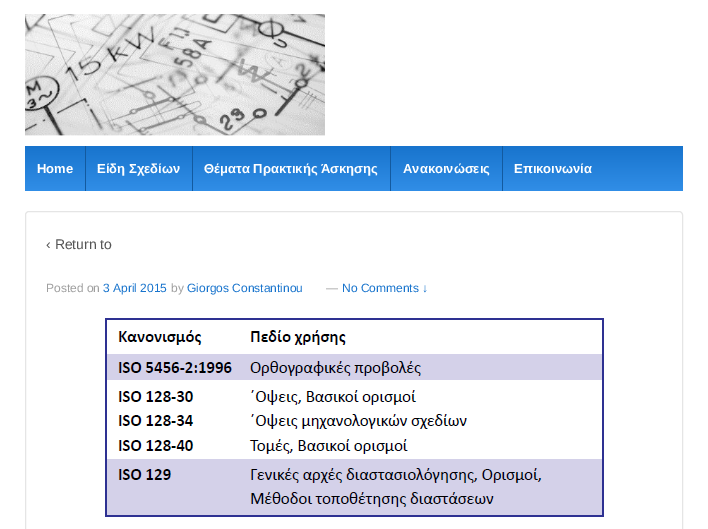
%!PS
<< /PageSize [708 529] >> setpagedevice
/m/moveto load def
/l/rlineto load def
/z/closepath load def
/s/stroke load def
/q/gsave load def
/Q_/grestore load def
/C { dup -16 bitshift 255 div exch dup -8 bitshift 255 and 255 div exch 255 and 255 div setrgbcolor } def
/F { [ exch dup neg 0 0 3 -1 roll 0 0 ] selectfont } def
/T { moveto show } def
/R { rectfill } def
/Q { 5 dict begin { /r /h /w /y /x } { exch def } forall
  x r add y moveto x w add y 2 copy h add r arct x w add y h add x 1 index r arct
  x y h add x y r arct x y 2 copy exch w add exch r arct closepath end } def
/I { 5 dict begin { /h /w /y /x /name } { exch def } forall
  gsave x y translate w h scale
  w h 8 [w 0 0 h 0 0] name (r) file false 3 colorimage grestore end } def
0 529 translate 1 -1 scale
4 setmiterlimit
16#FFFFFF C
0 0 708 529 R
(1.rgb) 25 14 300 122 I
q 25 146 m 658 0 l 0 45 l -658 0 l z clip newpath
<< /ShadingType 2 /ColorSpace /DeviceRGB /Coords [354 191 354 146] /Extend [true true] /Function << /FunctionType 2 /Domain [0 1] /C0 [.192 .557 .906] /C1 [.094 .455 .804] /N 1 >> >> shfill Q_
/LiberationSans-Bold 13 F
(Home) 37 173 T
16#135A9F C
85 146 1 45 R
16#FFFFFF C
(Είδη Σχεδίων) 97 173 T
16#135A9F C
192 146 1 45 R
16#FFFFFF C
(Θέματα Πρακτικής Άσκησης) 204 173 T
16#135A9F C
390 146 1 45 R
16#FFFFFF C
(Ανακοινώσεις) 403 173 T
16#135A9F C
502 146 1 45 R
16#FFFFFF C
(Επικοινωνία) 514 173 T
16#E5E5E5 C
25.5 211.5 657 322 3.5 Q s
/LiberationSans-Regular 14 F
16#555555 C
(‹ Return to) 46 249 T
/LiberationSans-Regular 12 F
16#9F9F9F C
(Posted on) 46 292 T
16#1874CD C
(3 April 2015) 103 292 T
16#9F9F9F C
(by) 171 292 T
16#1874CD C
(Giorgos Constantinou) 187 292 T
16#9F9F9F C
(—) 326 292 T
16#1874CD C
(No Comments ↓) 342 292 T
(2.rgb) 105 318 499 199 I
showpage
